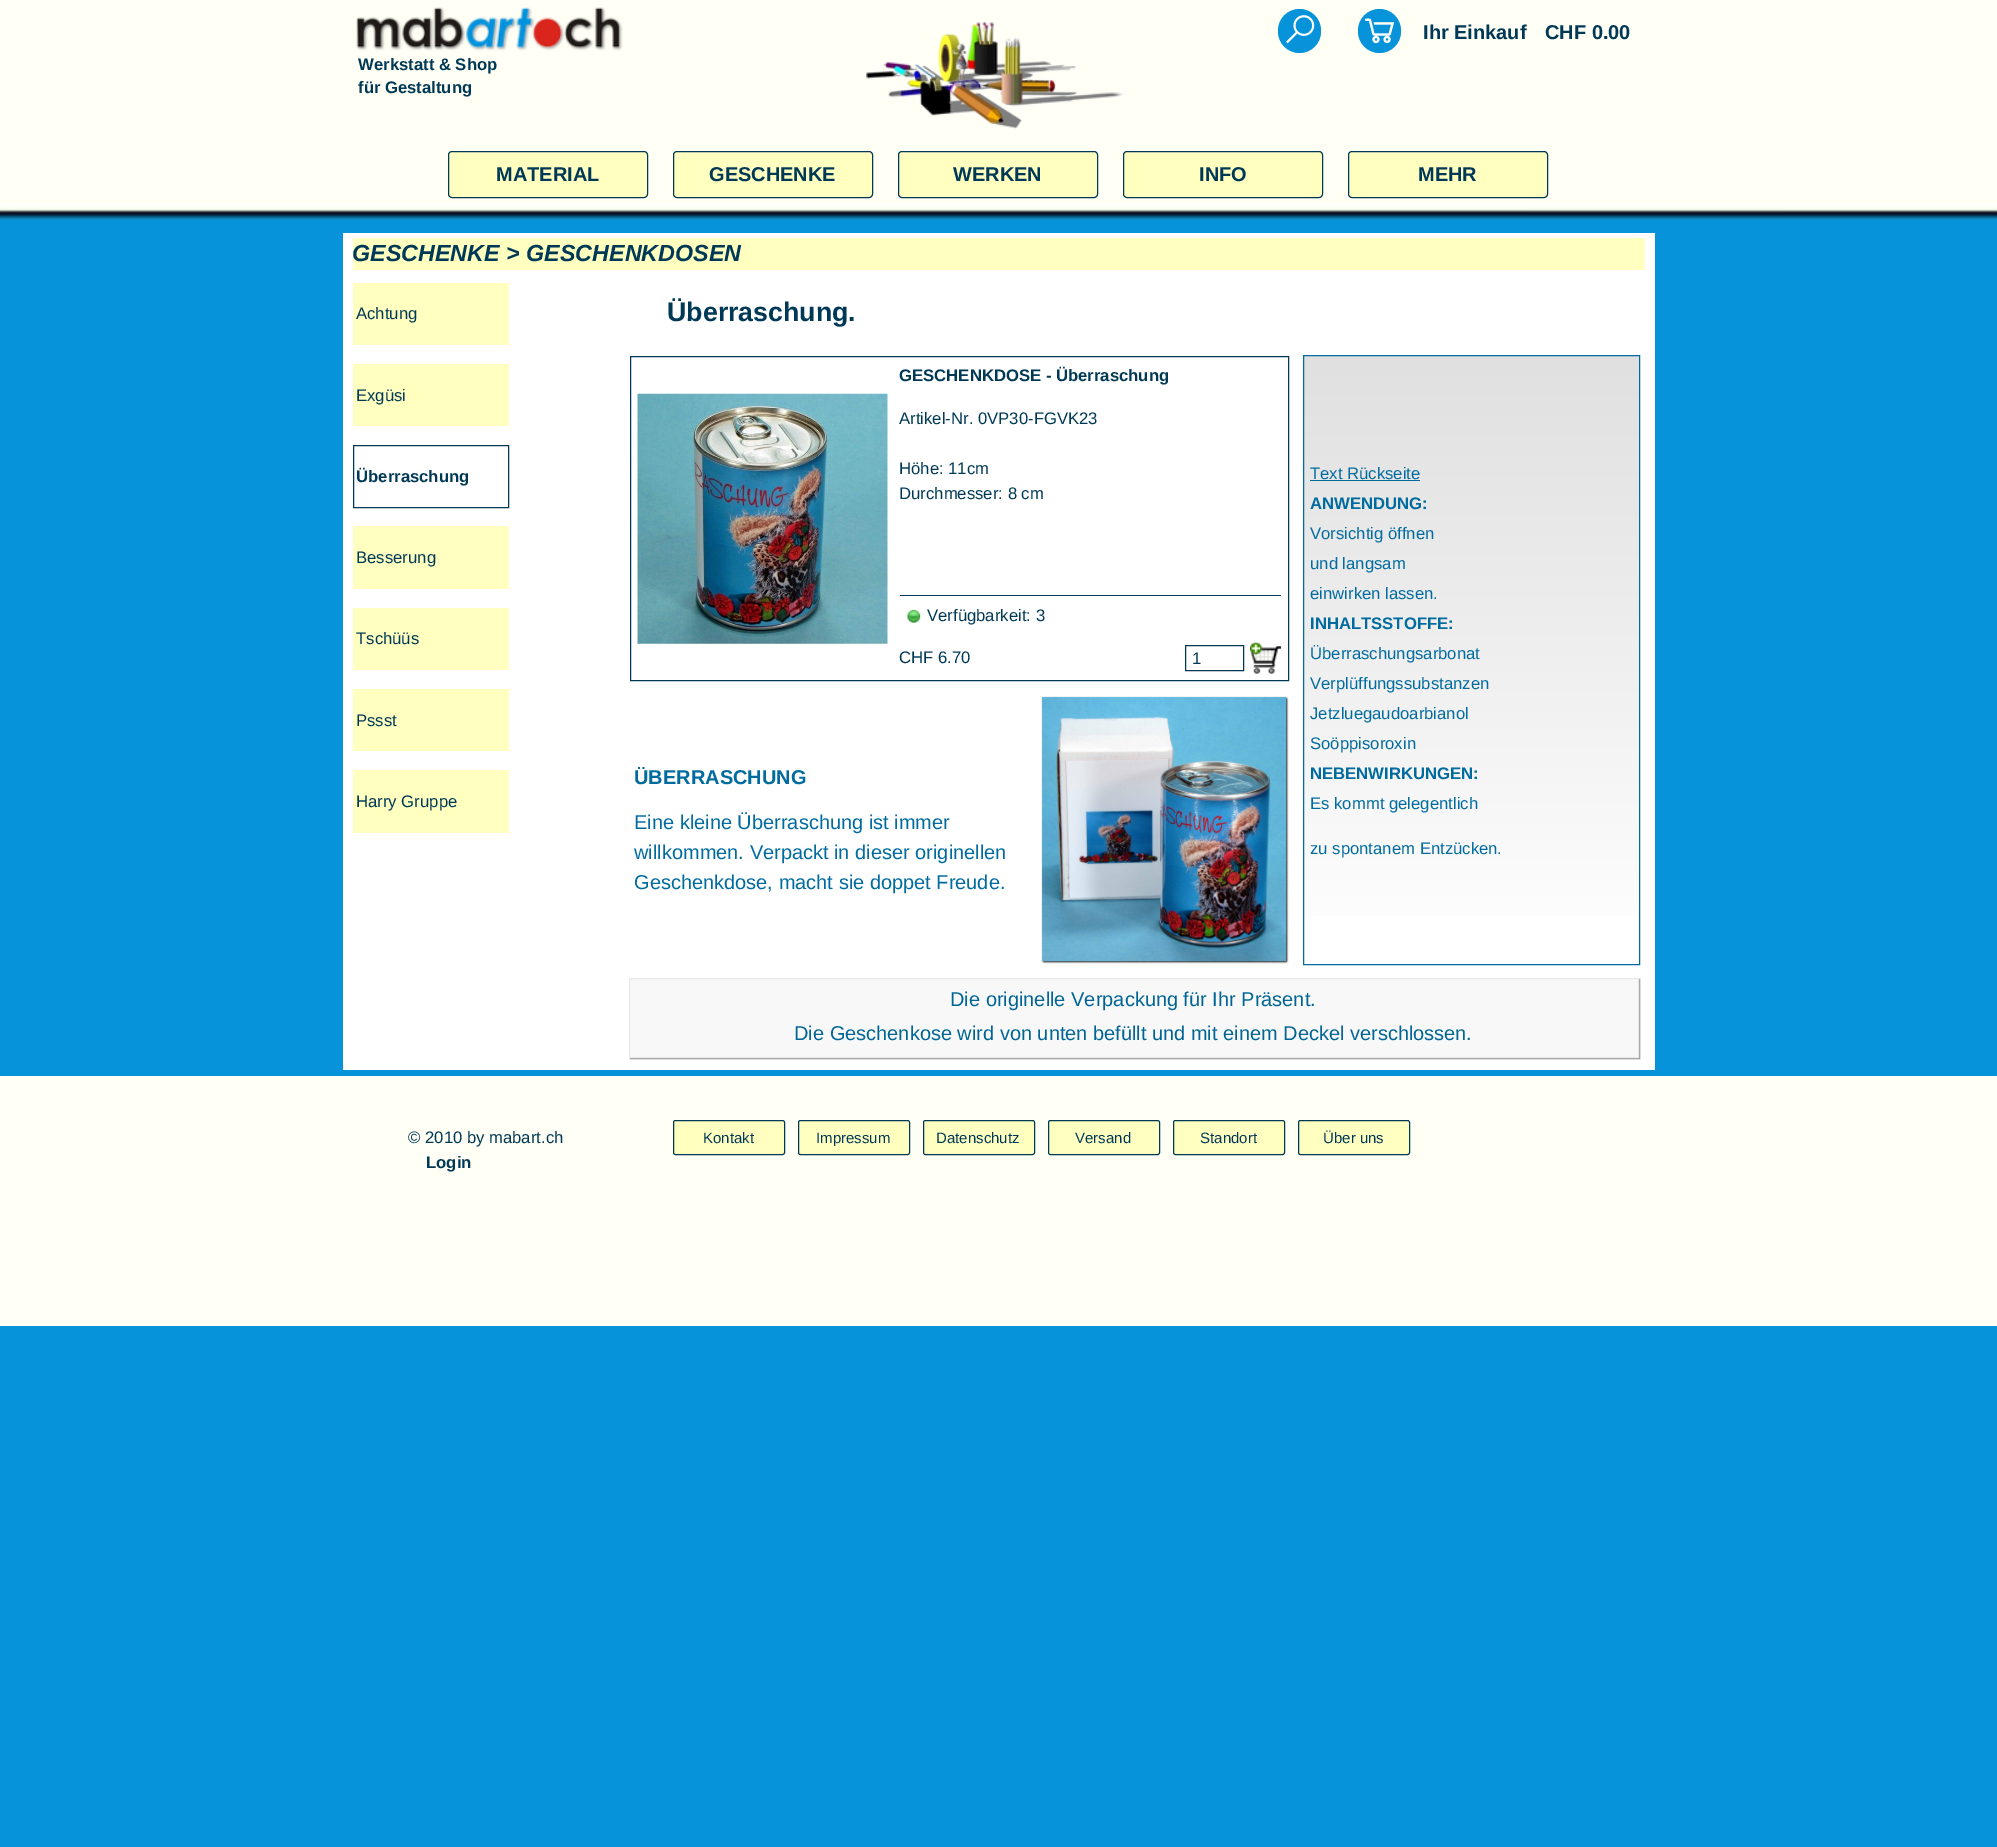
%!PS
<< /PageSize [1997 1847] /PageUsesTransparency true >> setpagedevice
/m/moveto load def
/l/rlineto load def
/z/closepath load def
/f/fill load def
/s/stroke load def
/q/gsave load def
/Q_/grestore load def
/C { dup -16 bitshift 255 div exch dup -8 bitshift 255 and 255 div exch 255 and 255 div setrgbcolor } def
/F { [ exch dup neg 0 0 3 -1 roll 0 0 ] selectfont } def
/T { moveto show } def
/R { rectfill } def
/A { dup .setfillconstantalpha .setstrokeconstantalpha } def
/Q { 5 dict begin { /r /h /w /y /x } { exch def } forall
  x r add y moveto x w add y 2 copy h add r arct x w add y h add x 1 index r arct
  x y h add x y r arct x y 2 copy exch w add exch r arct closepath end } def
/S { 12 dict begin { /a /b /q /h /w /y /x } { exch def } forall gsave /was 0 def
  9 -2 -9 { dup b mul 4 div /e exch def 1 sub .425 mul 2.718 exch exp 1 add a .99 .min exch div /now exch def
    1 1 now sub 1 was sub div sub A /was now def
    w h .min e 2 mul add 0 gt { x e sub y e sub w e 2 mul add h e 2 mul add
      q e add b .6 mul add w h .min 2 div e add .min 0 .max Q fill } if } for grestore end } def
/I { 5 dict begin { /h /w /y /x /name } { exch def } forall
  gsave x y translate w h scale
  w h 8 [w 0 0 h 0 0] name (r) file false 3 colorimage grestore end } def
0 .pushpdf14devicefilter
0 1847 translate 1 -1 scale
4 setmiterlimit
16#0693DA C
0 0 1997 1847 R
16#FFFFF5 C
0 0 1997 204 R
(1.rgb) 0 204 1997 16 I
(2.rgb) 356 7 267 44 I
(3.rgb) 866 21 257 108 I
16#0693DA C
1278 9 43 44 21.5 Q f
(4.rgb) 1286 15 29 29 I
1358 9 43 44 21.5 Q f
(5.rgb) 1364 18 31 26 I
/LiberationSans-Bold 20 F
16#003956 C
(Ihr Einkauf) 1423 39 T
(CHF 0.00) 1545 39 T
/LiberationSans-Bold 16.7 F
(Werkstatt & Shop) 358 70 T
(für Gestaltung) 358 93 T
16#FFFFC0 C
448.5 151.5 199 46 3.5 Q q f Q_
16#003956 C
s
/LiberationSans-Bold 20 F
(MATERIAL) 496 181 T
16#FFFFC0 C
673.5 151.5 199 46 3.5 Q q f Q_
16#003956 C
s
(GESCHENKE) 709 181 T
16#FFFFC0 C
898.5 151.5 199 46 3.5 Q q f Q_
16#003956 C
s
(WERKEN) 953 181 T
16#FFFFC0 C
1123.5 151.5 199 46 3.5 Q q f Q_
16#003956 C
s
(INFO) 1199 181 T
16#FFFFC0 C
1348.5 151.5 199 46 3.5 Q q f Q_
16#003956 C
s
(MEHR) 1418 181 T
16#FFFFFF C
343 233 1312 837 R
16#FFFFC0 C
353 238 1292 32 R
/LiberationSans-BoldItalic 23.3 F
16#003956 C
(GESCHENKE > GESCHENKDOSEN) 352 261 T
16#FFFFC0 C
353 283 156 62 R
/LiberationSans-Regular 16.7 F
16#003956 C
(Achtung) 356 319 T
16#FFFFC0 C
353 364 156 62 R
16#003956 C
(Exgüsi) 356 401 T
353.5 445.5 155 62 rectstroke
/LiberationSans-Bold 16.7 F
(Überraschung) 356 482 T
16#FFFFC0 C
353 526 156 63 R
/LiberationSans-Regular 16.7 F
16#003956 C
(Besserung) 356 563 T
16#FFFFC0 C
353 608 156 62 R
16#003956 C
(Tschüüs) 356 644 T
16#FFFFC0 C
353 689 156 62 R
16#003956 C
(Pssst) 356 726 T
16#FFFFC0 C
353 770 156 63 R
16#003956 C
(Harry Gruppe) 356 807 T
/LiberationSans-Bold 26.75 F
(Überraschung.) 667 321 T
630.5 356.5 658 324 rectstroke
/LiberationSans-Bold 16.7 F
(GESCHENKDOSE - Überraschung) 899 381 T
(6.rgb) 637 393 251 251 I
/LiberationSans-Regular 16.7 F
(Artikel-Nr. 0VP30-FGVK23) 899 424 T
(Höhe: 11cm) 899 474 T
(Durchmesser: 8 cm) 899 499 T
900 595 381 1 R
(7.rgb) 907 609 14 14 I
(Verfügbarkeit: 3) 927 621 T
(CHF 6.70) 899 663 T
1185.5 645.5 58 25 rectstroke
(1) 1192 664 T
(8.rgb) 1250 642 32 32 I
q 1304 356 m 335 0 l 0 560 l -335 0 l z clip newpath
<< /ShadingType 2 /ColorSpace /DeviceRGB /Coords [1471 355 1471 965] /Extend [true true] /Function << /FunctionType 2 /Domain [0 1] /C0 [.878 .878 .878] /C1 [1 1 1] /N 1 >> >> shfill Q_
16#006B9F C
1303.5 355.5 336 609 rectstroke
(Text Rückseite) 1310 479 T
1310 480 110 1 R
/LiberationSans-Bold 16.7 F
(ANWENDUNG:) 1310 509 T
/LiberationSans-Regular 16.7 F
(Vorsichtig öffnen) 1310 539 T
(und langsam) 1310 569 T
(einwirken lassen.) 1310 599 T
/LiberationSans-Bold 16.7 F
(INHALTSSTOFFE:) 1310 629 T
/LiberationSans-Regular 16.7 F
(Überraschungsarbonat) 1310 659 T
(Verplüffungssubstanzen) 1310 689 T
(Jetzluegaudoarbianol) 1310 719 T
(Soöppisoroxin) 1310 749 T
/LiberationSans-Bold 16.7 F
(NEBENWIRKUNGEN:) 1310 779 T
/LiberationSans-Regular 16.7 F
(Es kommt gelegentlich) 1310 809 T
(zu spontanem Entzücken.) 1310 854 T
/LiberationSans-Bold 20 F
(ÜBERRASCHUNG) 634 784 T
/LiberationSans-Regular 20 F
(Eine kleine Überraschung ist immer) 634 829 T
(willkommen. Verpackt in dieser originellen) 634 859 T
(Geschenkdose, macht sie doppet Freude.) 634 889 T
(9.rgb) 1041 696 248 268 I
16#F8F8F8 C
630 979 1008 78 R
q
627 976 m 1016 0 l 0 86 l -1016 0 l z 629 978 m 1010 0 l 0 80 l -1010 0 l z eoclip newpath
16#808080 C
630 979 1010 80 0 .5 1 S
Q_
16#E8E8E8 C
629.5 978.5 1009 79 rectstroke
16#006595 C
(Die originelle Verpackung für Ihr Präsent.) 950 1006 T
(Die Geschenkose wird von unten befüllt und mit einem Deckel verschlossen.) 794 1040 T
16#FFFFF5 C
0 1076 1997 250 R
/LiberationSans-Regular 16.7 F
16#003956 C
(© 2010 by mabart.ch) 408 1143 T
16#FFFFC0 C
673.5 1120.5 111 34 2 Q q f Q_
16#003956 C
s
/LiberationSans-Regular 15 F
(Kontakt) 703 1143 T
16#FFFFC0 C
798.5 1120.5 111 34 2 Q q f Q_
16#003956 C
s
(Impressum) 816 1143 T
16#FFFFC0 C
923.5 1120.5 111 34 2 Q q f Q_
16#003956 C
s
(Datenschutz) 936 1143 T
16#FFFFC0 C
1048.5 1120.5 111 34 2 Q q f Q_
16#003956 C
s
(Versand) 1075 1143 T
16#FFFFC0 C
1173.5 1120.5 111 34 2 Q q f Q_
16#003956 C
s
(Standort) 1200 1143 T
16#FFFFC0 C
1298.5 1120.5 111 34 2 Q q f Q_
16#003956 C
s
(Über uns) 1323 1143 T
/LiberationSans-Bold 16.7 F
(Login) 426 1168 T
.poppdf14devicefilter showpage
